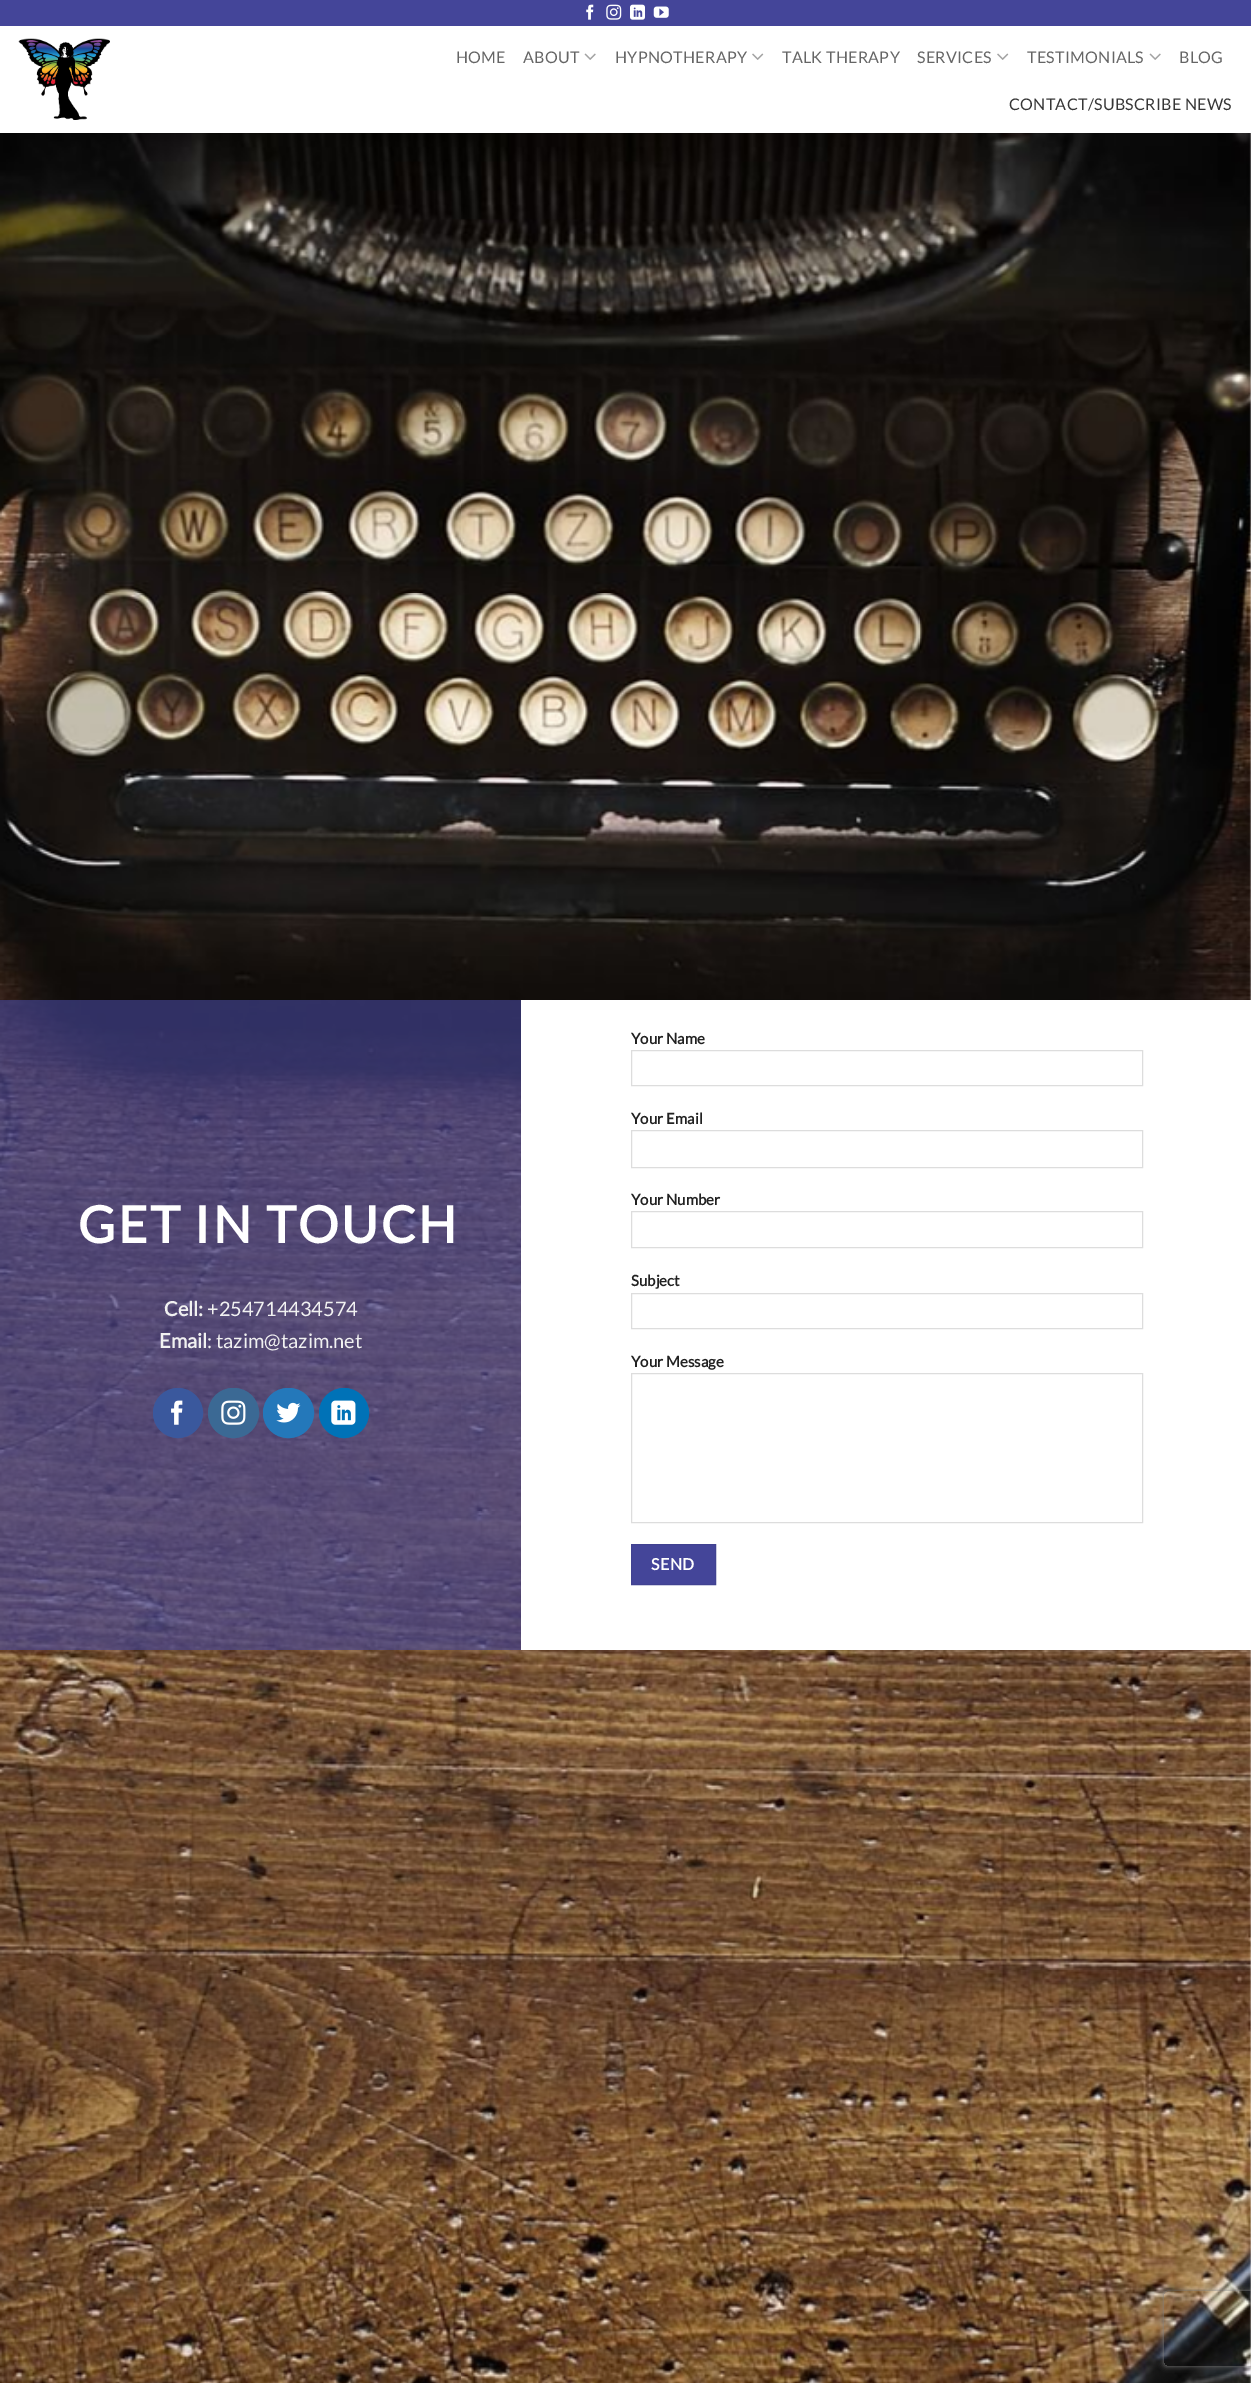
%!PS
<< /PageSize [1251 2383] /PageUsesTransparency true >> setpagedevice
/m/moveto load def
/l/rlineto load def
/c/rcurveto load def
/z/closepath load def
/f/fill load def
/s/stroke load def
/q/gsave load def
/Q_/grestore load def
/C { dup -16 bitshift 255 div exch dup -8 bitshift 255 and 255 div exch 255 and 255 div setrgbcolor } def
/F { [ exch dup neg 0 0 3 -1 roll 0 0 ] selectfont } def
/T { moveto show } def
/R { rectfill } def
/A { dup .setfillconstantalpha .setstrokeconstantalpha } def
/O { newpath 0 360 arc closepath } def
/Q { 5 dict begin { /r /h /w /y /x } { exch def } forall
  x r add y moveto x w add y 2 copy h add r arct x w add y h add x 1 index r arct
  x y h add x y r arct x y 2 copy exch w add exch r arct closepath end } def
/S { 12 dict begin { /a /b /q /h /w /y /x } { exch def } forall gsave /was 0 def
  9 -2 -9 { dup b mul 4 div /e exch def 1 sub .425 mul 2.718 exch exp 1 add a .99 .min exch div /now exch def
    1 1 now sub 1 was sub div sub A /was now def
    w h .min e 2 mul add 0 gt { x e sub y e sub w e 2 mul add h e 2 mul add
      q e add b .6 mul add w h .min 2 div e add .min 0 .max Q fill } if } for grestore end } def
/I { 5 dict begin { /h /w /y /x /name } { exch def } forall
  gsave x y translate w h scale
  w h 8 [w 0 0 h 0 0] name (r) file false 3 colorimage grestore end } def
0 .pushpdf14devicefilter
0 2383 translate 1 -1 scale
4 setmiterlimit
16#FFFFFF C
0 0 1251 2383 R
16#444599 C
0 0 1251 26 R
(1.rgb) 586 4 8 16 I
(2.rgb) 606 4 16 16 I
(3.rgb) 630 4 15 16 I
(4.rgb) 653 6 16 12 I
(5.rgb) 18 38 92 82 I
/Lato-Regular 16 F
16#656565 C
456 63 m .3 0 (HOME) ashow
523 63 m .3 0 (ABOUT) ashow
(6.rgb) 584 53 12 7 I
615 63 m .3 0 (HYPNOTHERAPY) ashow
(7.rgb) 752 53 12 7 I
782 63 m .3 0 (TALK THERAPY) ashow
917 63 m .3 0 (SERVICES) ashow
(7.rgb) 997 53 12 7 I
1027 63 m .3 0 (TESTIMONIALS) ashow
(6.rgb) 1149 53 12 7 I
1179 63 m .3 0 (BLOG) ashow
16#363636 C
1009 110 m .3 0 (CONTACT/SUBSCRIBE NEWS) ashow
(8.rgb) 0 133 1251 2250 I
0.1 A
16#000000 C
130 133 910 1 R
0.64 A
16#444597 C
0 1000 521 650 R
/Lato-Bold 50.75 F
1 A
16#FFFFFF C
78 1243 m 2.5 0 (GET IN TOUCH) ashow
/Lato-Bold 20 F
16#F1F1F1 C
(Cell:) 164 1316 T
/Lato-Regular 20 F
(+254714434574) 207 1316 T
/Lato-Bold 20 F
(Email) 159 1348 T
/Lato-Regular 20 F
(: tazim@tazim.net) 207 1348 T
16#3A589D C
178 1413 24.5 O q f Q_
s
(9.rgb) 171 1400 12 25 I
16#3B6994 C
208.5 1388.5 50 49 24.5 Q q f Q_
s
(10.rgb) 221 1400 25 25 I
16#2478BA C
263.5 1388.5 50 49 24.5 Q q f Q_
s
(11.rgb) 276 1402 25 21 I
16#0072B7 C
344 1413 24.5 O q f Q_
s
(12.rgb) 331 1400 25 25 I
16#FFFFFF C
521 1000 730 650 R
/Lato-Bold 15 F
16#222222 C
(Your Name) 631 1044 T
16#DDDDDD C
631.5 1050.5 511 35 rectstroke
16#222222 C
(Your Email) 631 1124 T
16#DDDDDD C
631.5 1130.5 511 37 rectstroke
16#222222 C
(Your Number) 631 1205 T
16#DDDDDD C
631.5 1211.5 511 36 rectstroke
16#222222 C
(Subject) 631 1286 T
16#DDDDDD C
631.5 1293.5 511 35 rectstroke
16#222222 C
(Your Message) 631 1367 T
16#DDDDDD C
631.5 1373.5 511 149 rectstroke
16#444599 C
631.5 1544.5 m 84 0 l 0 40 l -84 0 l z q f Q_
16#414291 C
s
/Lato-Bold 16 F
16#FFFFFF C
651 1570 m .5 0 (SEND) ashow
q
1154 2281 m 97 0 l 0 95 l -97 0 l z 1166.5 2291 m 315 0 l 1.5 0 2.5 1 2.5 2.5 c 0 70 l 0 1.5 -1 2.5 -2.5 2.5 c -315 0 l -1.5 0 -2.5 -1 -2.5 -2.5 c 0 -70 l 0 -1.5 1 -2.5 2.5 -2.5 c z eoclip newpath
16#808080 C
1164 2291 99 75 2.5 3 1 S
Q_
.poppdf14devicefilter showpage
